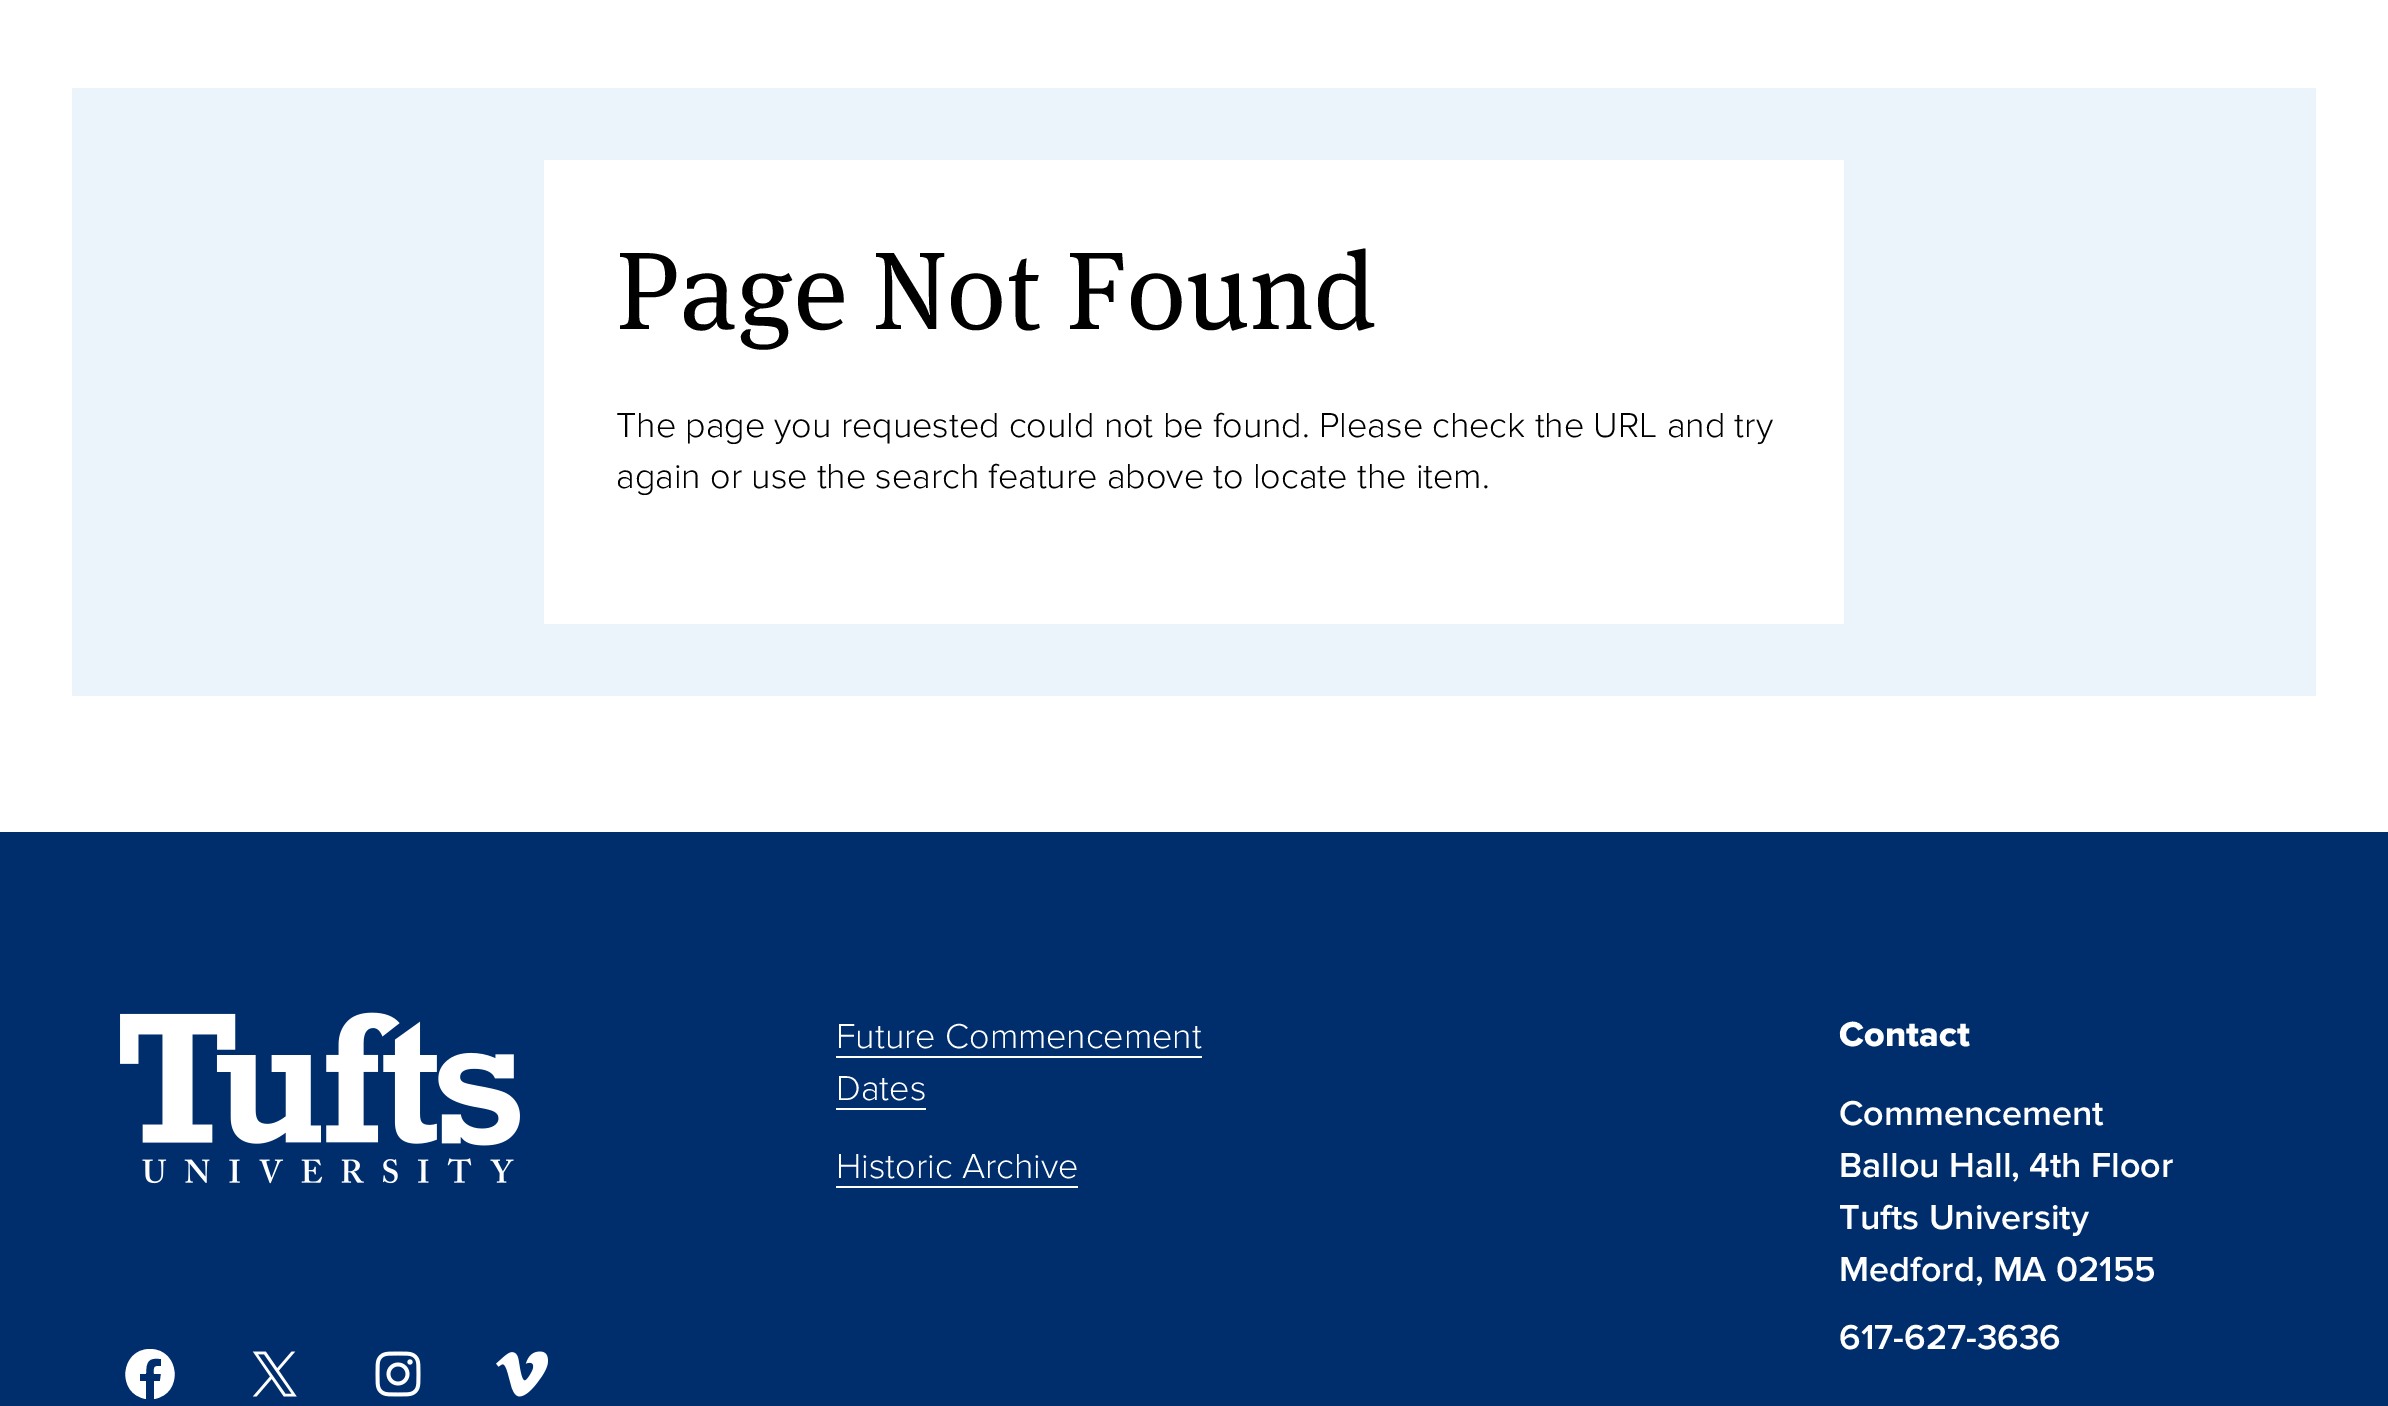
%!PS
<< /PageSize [2388 1406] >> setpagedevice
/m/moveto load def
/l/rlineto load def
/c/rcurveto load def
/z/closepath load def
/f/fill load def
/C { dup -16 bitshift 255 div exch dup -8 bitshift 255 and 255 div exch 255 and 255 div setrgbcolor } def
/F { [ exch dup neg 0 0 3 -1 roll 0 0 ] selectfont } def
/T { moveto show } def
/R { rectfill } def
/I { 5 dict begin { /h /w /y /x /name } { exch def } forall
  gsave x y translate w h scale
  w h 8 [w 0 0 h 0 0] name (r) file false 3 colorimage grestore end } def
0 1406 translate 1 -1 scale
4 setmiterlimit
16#FFFFFF C
0 0 2388 1406 R
16#EBF3FB C
72 88 2244 608 R
16#FFFFFF C
544 160 1300 464 R
/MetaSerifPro-Regular 110.25 F
16#000000 C
(Page Not Found) 616 329 T
/ProximaNova-Light 35.85 F
(The page you requested could not be found. Please check the URL and try) 616 437 T
(again or use the search) 616 488 T
(feature above to locate the item.) 988 488 T
16#002E6D C
0 832 2388 574 R
(1.rgb) 120 1012 400 172 I
16#FFFFFF C
150 1349 m -30 0 -34 45 -4 50 c 0 -18 l -6 0 l 0 -7 l 6 0 l 0 -12 2 -17 15 -15 c 0 7 l -8 0 -7 1 -7 8 c 7 0 l -1 7 l -6 0 l 0 18 l 30 -5 26 -50 -4 -50 c z f
(2.rgb) 252 1351 45 46 I
(3.rgb) 375 1351 46 46 I
(4.rgb) 496 1351 52 46 I
(Future Commencement) 836 1048 T
836 1056 366 2 R
(Dates) 836 1100 T
836 1108 90 2 R
(Historic Archive) 836 1178 T
836 1186 242 2 R
/ProximaNova-ExtraBold 36 F
(Contact) 1839 1046 T
/ProximaNova-SemiBold 35.85 F
(Commencement) 1839 1125 T
(Ballou Hall, 4th Floor) 1839 1177 T
(Tufts University) 1839 1229 T
(Medford, MA 02155) 1839 1281 T
(617-627-3636) 1839 1349 T
showpage
